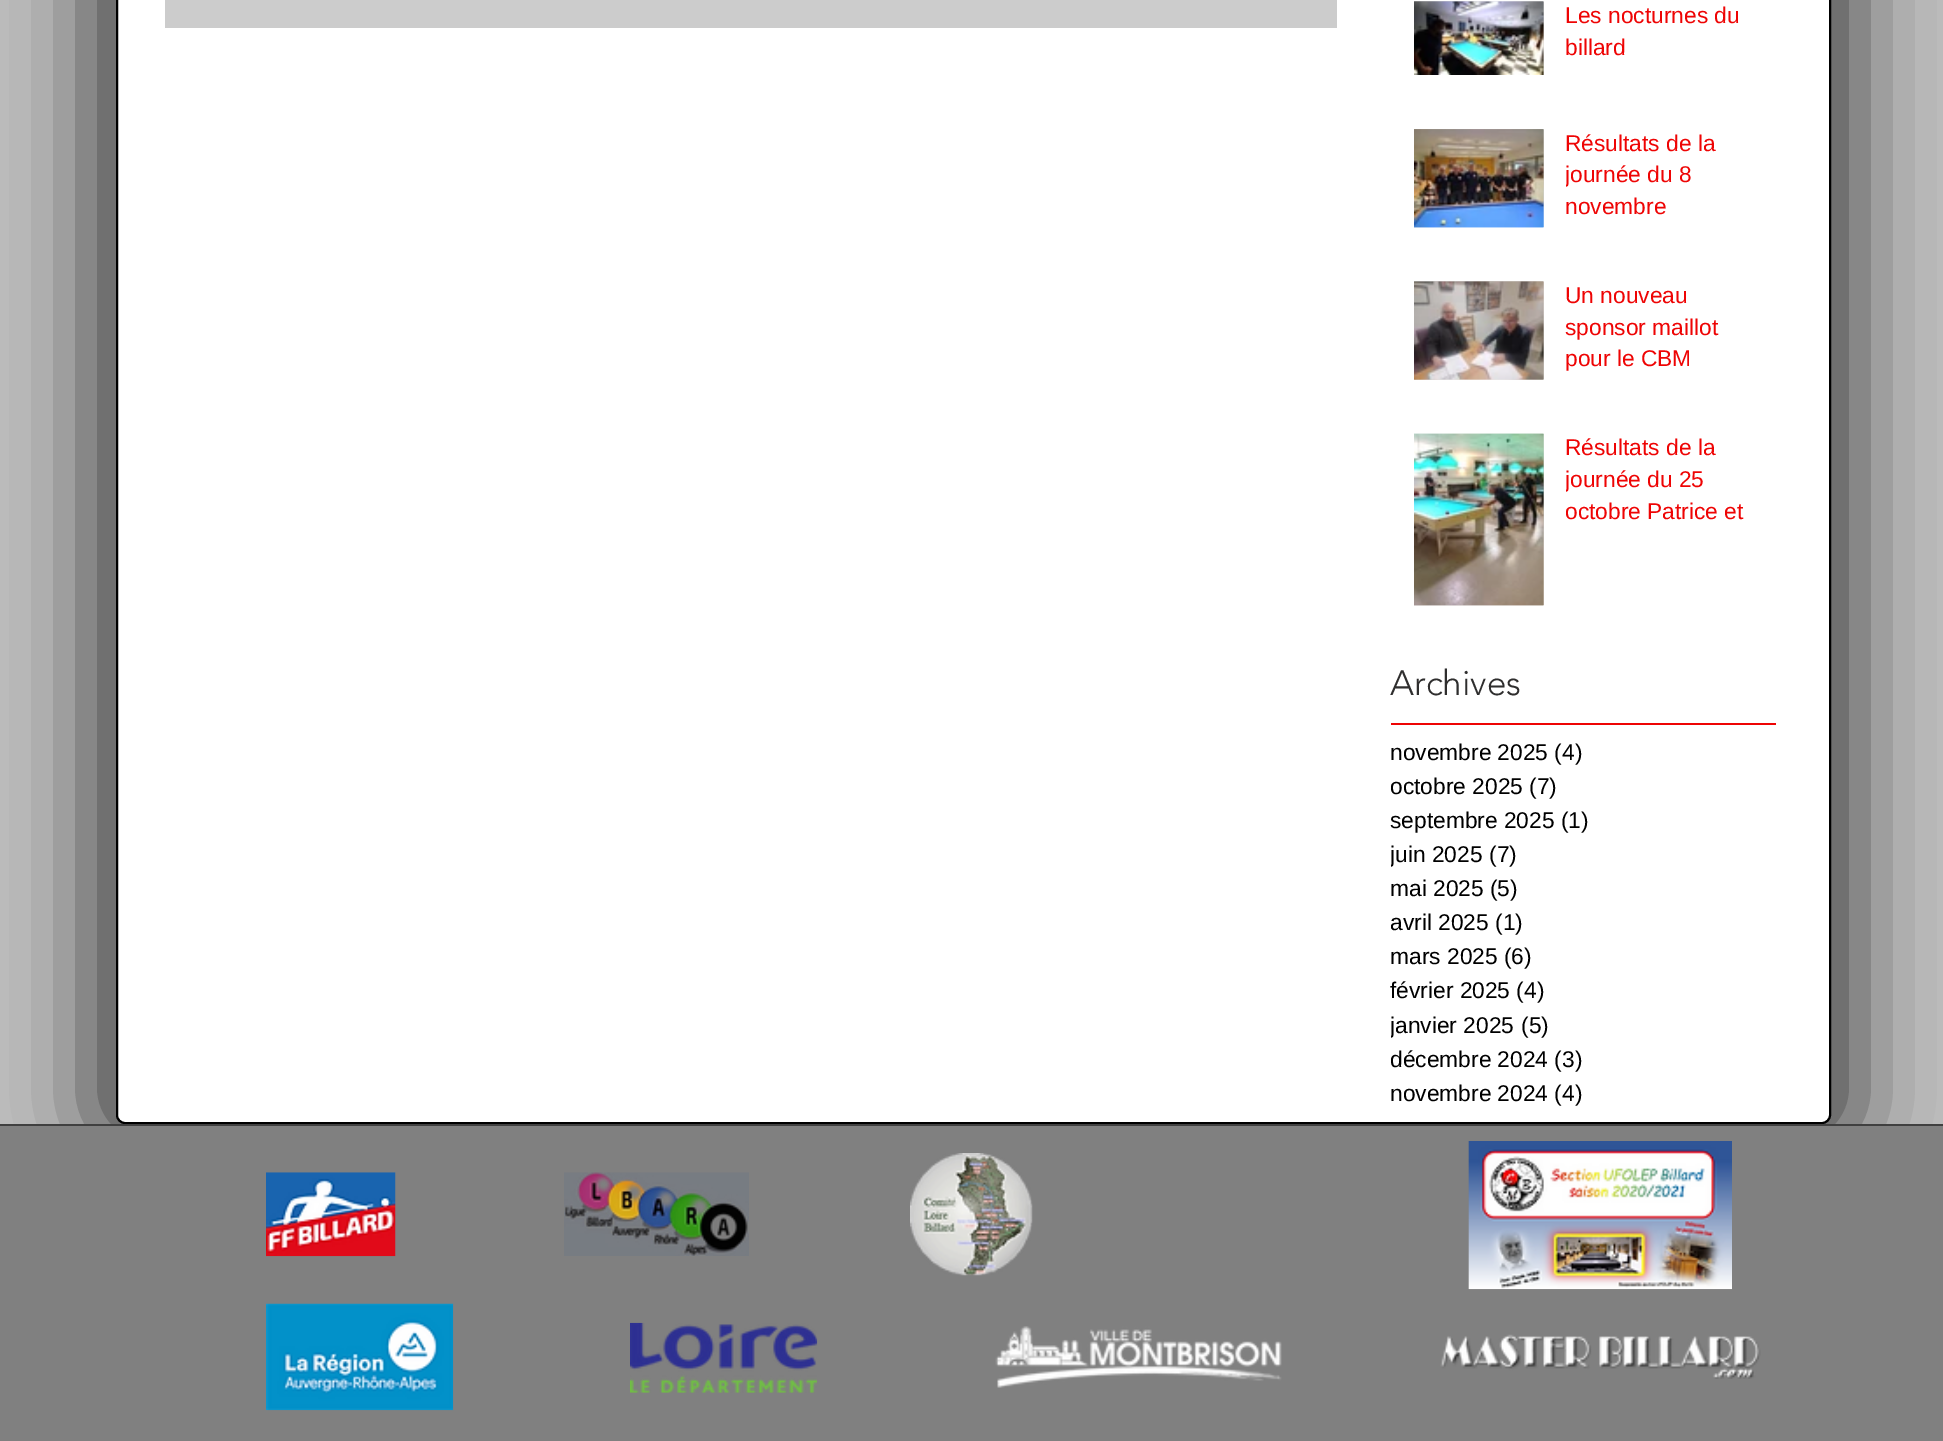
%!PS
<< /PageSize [1943 1441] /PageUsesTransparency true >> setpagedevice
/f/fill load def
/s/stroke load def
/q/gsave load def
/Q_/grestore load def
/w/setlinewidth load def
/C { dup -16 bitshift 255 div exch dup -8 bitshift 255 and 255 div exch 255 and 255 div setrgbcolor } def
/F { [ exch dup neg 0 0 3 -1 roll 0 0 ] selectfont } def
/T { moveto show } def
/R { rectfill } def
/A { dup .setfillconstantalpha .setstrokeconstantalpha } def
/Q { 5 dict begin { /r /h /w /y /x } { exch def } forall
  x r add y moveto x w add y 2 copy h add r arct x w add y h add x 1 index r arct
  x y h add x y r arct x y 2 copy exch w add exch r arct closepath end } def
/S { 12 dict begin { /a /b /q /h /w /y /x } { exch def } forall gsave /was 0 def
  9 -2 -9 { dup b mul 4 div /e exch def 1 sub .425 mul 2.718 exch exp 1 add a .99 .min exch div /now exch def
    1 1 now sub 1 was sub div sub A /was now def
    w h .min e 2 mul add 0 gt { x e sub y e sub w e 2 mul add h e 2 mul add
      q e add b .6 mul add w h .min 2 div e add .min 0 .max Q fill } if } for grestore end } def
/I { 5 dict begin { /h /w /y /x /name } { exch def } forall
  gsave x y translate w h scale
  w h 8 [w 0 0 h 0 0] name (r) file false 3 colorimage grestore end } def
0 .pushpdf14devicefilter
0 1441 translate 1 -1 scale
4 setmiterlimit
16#BFBFBF C
0 0 1943 1441 R
16#000000 C
86 -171 1774 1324 39 44 .6 S
16#FFFFFF C
117 -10 1713 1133 8 Q q f Q_
16#000000 C
2 w
s
16#CCCCCC C
165 0 1172 28 R
(1.rgb) 1414 1 130 74 I
(2.rgb) 1414 1 130 74 I
/LiberationSans-Regular 22.75 F
16#EE0404 C
(Les nocturnes du) 1565 23 T
(billard) 1565 55 T
(3.rgb) 1414 129 130 99 I
(4.rgb) 1414 129 130 99 I
(Résultats de la) 1565 151 T
q
1566 128 189 96 rectclip
(journée du 8) 1565 182 T
Q_
(novembre) 1565 214 T
(5.rgb) 1414 281 130 99 I
(6.rgb) 1414 281 130 99 I
(Un nouveau) 1565 303 T
(sponsor maillot) 1565 335 T
(pour le CBM) 1565 366 T
(7.rgb) 1414 433 130 173 I
(8.rgb) 1414 433 130 173 I
(Résultats de la) 1565 455 T
q
1566 432 189 97 rectclip
(journée du 25) 1565 487 T
Q_
(octobre Patrice et) 1565 519 T
/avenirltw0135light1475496-Light 35 F
16#2F2E2E C
(Archives) 1390 695 T
16#EE0404 C
1391 723 385 2 R
/LiberationSans-Regular 22.75 F
16#000000 C
(novembre 2025 \(4\)) 1390 760 T
(octobre 2025 \(7\)) 1390 794 T
(septembre 2025 \(1\)) 1390 828 T
q
1391 838 126 34 rectclip
(juin 2025) 1390 862 T
Q_
(\(7\)) 1489 862 T
(mai 2025 \(5\)) 1390 896 T
(avril 2025 \(1\)) 1390 930 T
(mars 2025 \(6\)) 1390 964 T
(février 2025 \(4\)) 1390 998 T
q
1391 1008 158 35 rectclip
(janvier 2025) 1390 1033 T
Q_
(\(5\)) 1521 1033 T
(décembre 2024 \(3\)) 1390 1067 T
(novembre 2024 \(4\)) 1390 1101 T
16#808080 C
0 1126 1943 315 R
16#404040 C
0 1124 1943 2 R
(9.rgb) 266 1172 130 85 I
(10.rgb) 564 1172 185 84 I
(11.rgb) 910 1153 123 123 I
(12.rgb) 1468 1141 264 149 I
(13.rgb) 266 1303 188 108 I
(14.rgb) 630 1322 188 71 I
(15.rgb) 995 1326 287 62 I
(16.rgb) 1440 1334 321 45 I
.poppdf14devicefilter showpage
